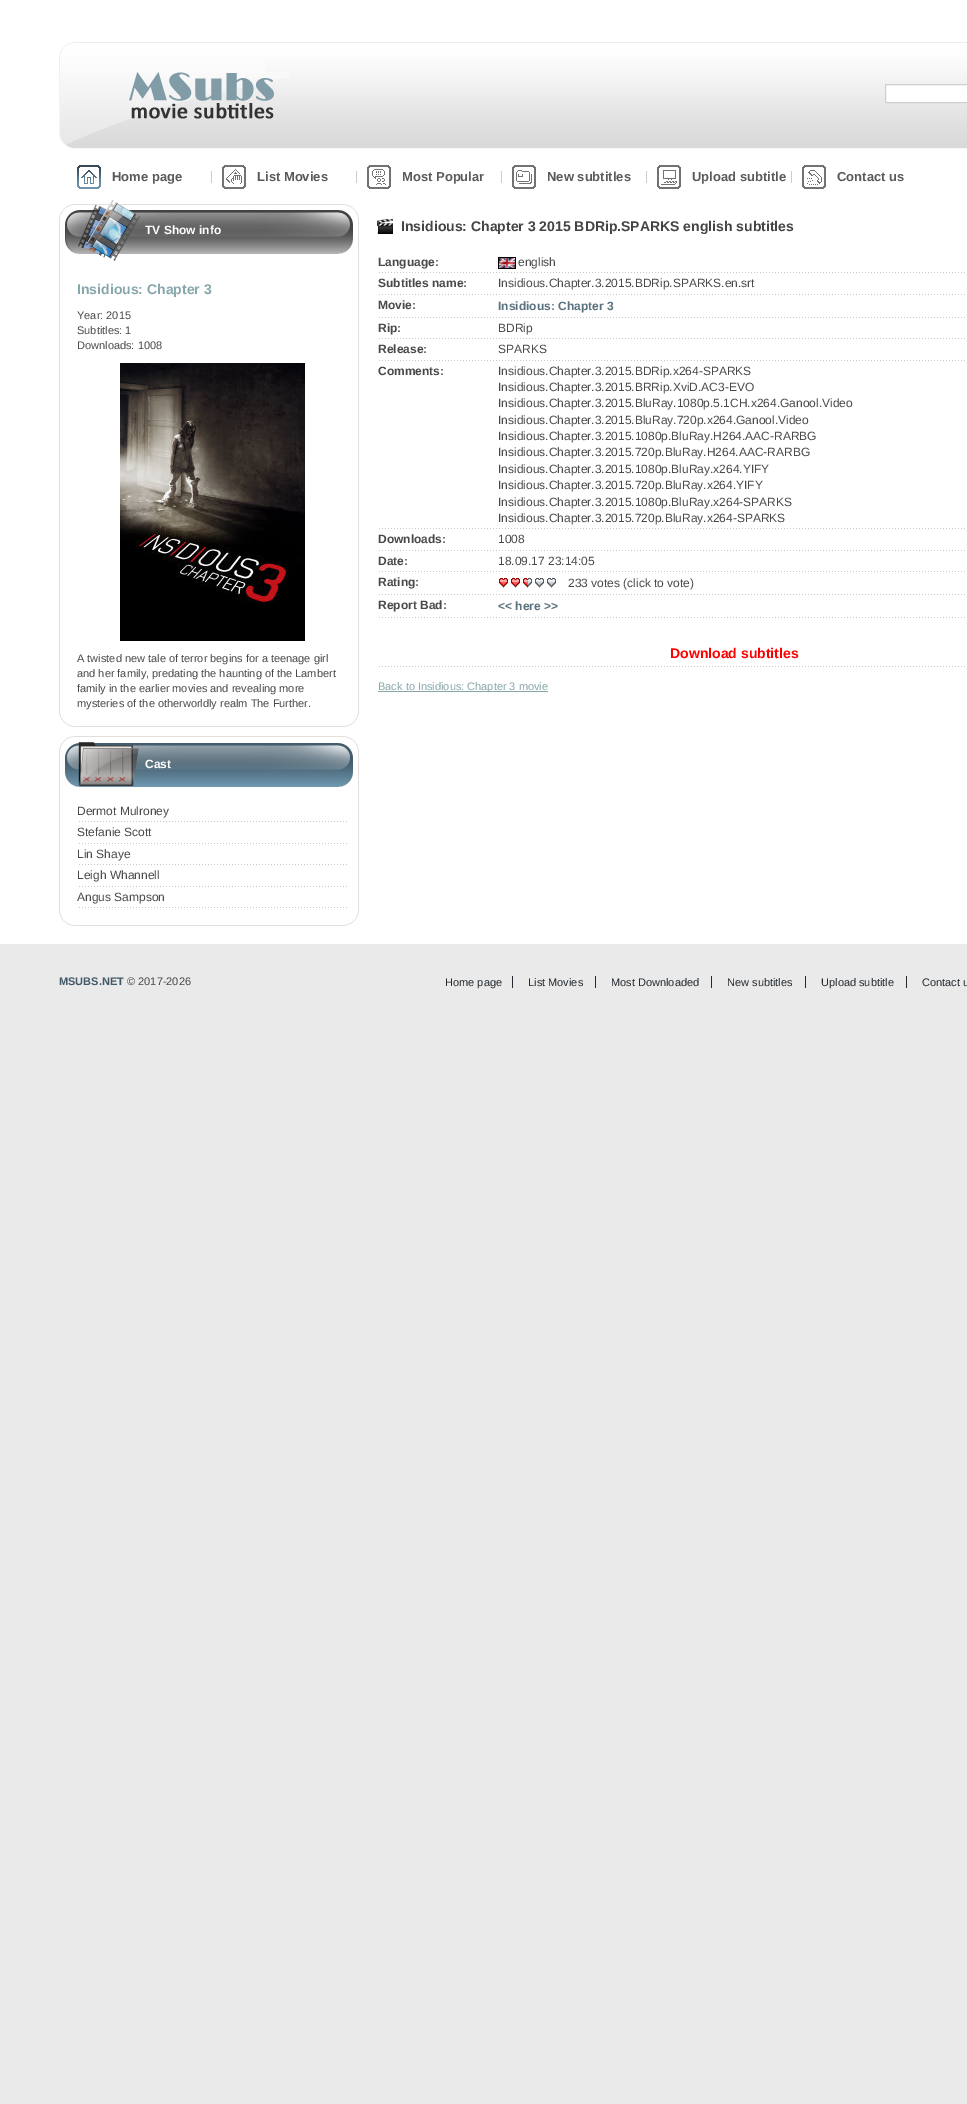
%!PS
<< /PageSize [967 2104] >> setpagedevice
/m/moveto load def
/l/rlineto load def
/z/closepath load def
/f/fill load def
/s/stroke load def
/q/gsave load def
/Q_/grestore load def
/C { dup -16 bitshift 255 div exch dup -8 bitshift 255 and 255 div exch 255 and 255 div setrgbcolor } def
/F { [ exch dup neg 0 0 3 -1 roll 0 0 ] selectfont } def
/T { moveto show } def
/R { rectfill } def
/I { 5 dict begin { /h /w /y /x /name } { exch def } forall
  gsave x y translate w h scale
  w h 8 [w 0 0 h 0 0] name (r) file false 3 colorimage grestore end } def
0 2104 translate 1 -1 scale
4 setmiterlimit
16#EAEAEA C
0 0 967 2104 R
16#FFFFFF C
0 0 967 944 R
(1.rgb) 265 42 702 107 I
(2.rgb) 59 42 206 107 I
(3.rgb) 129 72 160 47 I
885.5 84.5 m 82 0 l 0 18 l -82 0 l z q f Q_
16#D0CFCF C
s
16#CCCCCC C
211 171 1 12 R
(4.rgb) 77 165 24 24 I
/LiberationSans-Bold 13 F
16#5A5A5A C
(Home page) 112 181 T
16#CCCCCC C
356 171 1 12 R
(5.rgb) 222 165 24 24 I
16#5A5A5A C
(List Movies) 257 181 T
16#CCCCCC C
501 171 1 12 R
(6.rgb) 367 165 24 24 I
16#5A5A5A C
(Most Popular) 402 181 T
16#CCCCCC C
646 171 1 12 R
(7.rgb) 512 165 24 24 I
16#5A5A5A C
(New subtitles) 547 181 T
16#CCCCCC C
791 171 1 12 R
(8.rgb) 657 165 24 24 I
16#5A5A5A C
(Upload subtitle) 692 181 T
(9.rgb) 802 165 24 24 I
(Contact us) 837 181 T
16#E2DFDF C
358 218 1 495 R
59 218 1 495 R
74 204 270 1 R
74 726 270 1 R
(10.rgb) 59 204 15 14 I
(11.rgb) 344 204 15 14 I
(12.rgb) 59 713 15 14 I
(13.rgb) 344 713 15 14 I
(14.rgb) 65 200 119 61 I
(15.rgb) 251 210 102 44 I
(16.rgb) 184 210 67 44 I
/LiberationSans-Bold 12 F
16#FFFFFF C
(TV Show info) 145 234 T
/LiberationSans-Bold 14 F
16#87A7AB C
(Insidious: Chapter 3) 77 294 T
/LiberationSans-Regular 11 F
16#47494B C
(Year: 2015) 77 319 T
(Subtitles: 1) 77 334 T
(Downloads: 1008) 77 349 T
(17.rgb) 120 363 185 278 I
(A twisted new tale of terror begins for a teenage girl) 77 662 T
(and her family, predating the haunting of the Lambert) 77 677 T
(family in the earlier movies and revealing more) 77 692 T
(mysteries of the otherworldly realm The Further.) 77 707 T
16#E2DFDF C
358 750 1 162 R
59 750 1 162 R
74 736 270 1 R
74 925 270 1 R
(10.rgb) 59 736 15 14 I
(11.rgb) 344 736 15 14 I
(12.rgb) 59 912 15 14 I
(13.rgb) 344 912 15 14 I
(18.rgb) 65 742 119 45 I
(19.rgb) 251 743 102 44 I
(20.rgb) 184 743 67 44 I
/LiberationSans-Bold 12 F
16#FFFFFF C
(Cast) 145 768 T
(21.rgb) 79 821 268 1 I
/LiberationSans-Regular 12 F
16#47494B C
(Dermot Mulroney) 77 815 T
(21.rgb) 79 843 268 1 I
(Stefanie Scott) 77 836 T
(21.rgb) 79 864 268 1 I
(Lin Shaye) 77 858 T
(21.rgb) 79 886 268 1 I
(Leigh Whannell) 77 879 T
(21.rgb) 79 907 268 1 I
(Angus Sampson) 77 901 T
(22.rgb) 377 219 16 15 I
/LiberationSans-Bold 14 F
16#444444 C
(Insidious: Chapter 3 2015 BDRip.SPARKS english subtitles) 401 231 T
(23.rgb) 379 272 586 1 I
/LiberationSans-Bold 12 F
16#47494B C
(Language:) 378 266 T
(24.rgb) 498 257 18 12 I
/LiberationSans-Regular 12 F
(english) 518 266 T
(23.rgb) 379 294 586 1 I
/LiberationSans-Bold 12 F
(Subtitles name:) 378 287 T
/LiberationSans-Regular 12 F
(Insidious.Chapter.3.2015.BDRip.SPARKS.en.srt) 498 287 T
(23.rgb) 379 317 586 1 I
/LiberationSans-Bold 12 F
(Movie:) 378 309 T
16#5A717F C
(Insidious: Chapter 3) 498 310 T
(23.rgb) 379 338 586 1 I
16#47494B C
(Rip:) 378 332 T
/LiberationSans-Regular 12 F
(BDRip) 498 332 T
(23.rgb) 379 360 586 1 I
/LiberationSans-Bold 12 F
(Release:) 378 353 T
/LiberationSans-Regular 12 F
(SPARKS) 498 353 T
(23.rgb) 379 528 586 1 I
/LiberationSans-Bold 12 F
(Comments:) 378 375 T
/LiberationSans-Regular 12 F
(Insidious.Chapter.3.2015.BDRip.x264-SPARKS) 498 375 T
(Insidious.Chapter.3.2015.BRRip.XviD.AC3-EVO) 498 391 T
(Insidious.Chapter.3.2015.BluRay.1080p.5.1CH.x264.Ganool.Video) 498 407 T
(Insidious.Chapter.3.2015.BluRay.720p.x264.Ganool.Video) 498 424 T
(Insidious.Chapter.3.2015.1080p.BluRay.H264.AAC-RARBG) 498 440 T
(Insidious.Chapter.3.2015.720p.BluRay.H264.AAC-RARBG) 498 456 T
(Insidious.Chapter.3.2015.1080p.BluRay.x264.YIFY) 498 473 T
(Insidious.Chapter.3.2015.720p.BluRay.x264.YIFY) 498 489 T
(Insidious.Chapter.3.2015.1080p.BluRay.x264-SPARKS) 498 506 T
(Insidious.Chapter.3.2015.720p.BluRay.x264-SPARKS) 498 522 T
(23.rgb) 379 550 586 1 I
/LiberationSans-Bold 12 F
(Downloads:) 378 543 T
/LiberationSans-Regular 12 F
(1008) 498 543 T
(23.rgb) 379 571 586 1 I
/LiberationSans-Bold 12 F
(Date:) 378 565 T
/LiberationSans-Regular 12 F
(18.09.17 23:14:05) 498 565 T
(23.rgb) 379 594 586 1 I
/LiberationSans-Bold 12 F
(Rating:) 378 586 T
(25.rgb) 499 578 9 10 I
(25.rgb) 511 578 9 10 I
(26.rgb) 523 578 9 10 I
(27.rgb) 535 578 9 10 I
(27.rgb) 547 578 9 10 I
/LiberationSans-Regular 12 F
(233 votes \(click to vote\)) 568 587 T
(23.rgb) 379 617 586 1 I
/LiberationSans-Bold 12 F
(Report Bad:) 378 609 T
16#5A717F C
(<< here >>) 498 610 T
(23.rgb) 379 666 586 1 I
/LiberationSans-Bold 14 F
16#FF0000 C
(Download subtitles) 670 658 T
16#87A7AB C
378 691 170 1 R
/LiberationSans-Regular 11 F
(Back to Insidious: Chapter 3 movie) 378 690 T
/LiberationSans-Bold 11 F
16#425867 C
(MSUBS.NET) 59 985 T
/LiberationSans-Regular 11 F
16#47494B C
(© 2017-2026) 127 985 T
16#242A30 C
(Home page) 445 986 T
512 976 1 12 R
(List Movies) 528 986 T
595 976 1 12 R
(Most Downloaded) 611 986 T
711 976 1 12 R
(New subtitles) 727 986 T
805 976 1 12 R
(Upload subtitle) 821 986 T
906 976 1 12 R
(Contact u) 922 986 T
showpage
